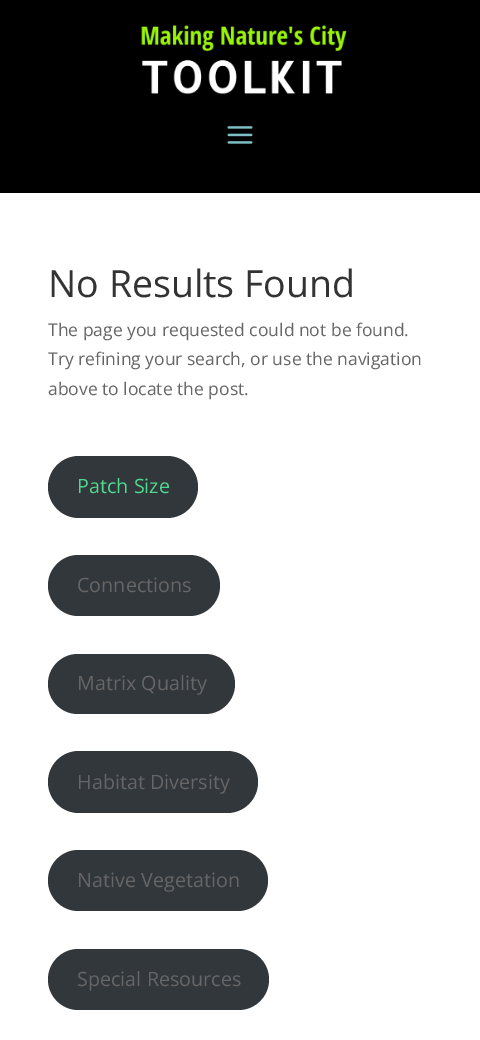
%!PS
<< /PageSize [480 1040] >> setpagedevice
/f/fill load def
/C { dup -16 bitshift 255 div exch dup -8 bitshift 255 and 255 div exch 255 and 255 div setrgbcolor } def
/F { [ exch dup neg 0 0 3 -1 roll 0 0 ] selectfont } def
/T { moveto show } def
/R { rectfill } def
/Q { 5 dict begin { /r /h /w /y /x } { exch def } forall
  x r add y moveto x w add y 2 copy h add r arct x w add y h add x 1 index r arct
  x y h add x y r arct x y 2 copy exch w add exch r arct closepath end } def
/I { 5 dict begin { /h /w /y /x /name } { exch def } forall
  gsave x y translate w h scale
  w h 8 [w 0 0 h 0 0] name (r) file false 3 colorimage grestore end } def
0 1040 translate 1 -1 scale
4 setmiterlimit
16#FFFFFF C
0 0 480 1040 R
16#000000 C
0 0 480 193 R
(1.rgb) 141 25 206 70 I
(2.rgb) 227 126 26 18 I
/OpenSans-Regular 37.5 F
16#333333 C
(No Results Found) 48 297 T
/OpenSans-Regular 17.5 F
16#666666 C
(The page you requested could not be found.) 48 336 T
(Try refining your search, or use the navigation) 48 365 T
(above to locate the post.) 48 395 T
16#32373C C
48 456 150 62 31 Q f
/OpenSans-Regular 19.75 F
16#50D890 C
(Patch Size) 77 493 T
16#32373C C
48 555 172 61 30.5 Q f
16#666666 C
(Connections) 77 592 T
16#32373C C
48 654 187 60 30 Q f
16#666666 C
(Matrix Quality) 77 690 T
16#32373C C
48 751 210 62 31 Q f
16#666666 C
(Habitat Diversity) 77 789 T
16#32373C C
48 850 220 61 30.5 Q f
16#666666 C
(Native Vegetation) 77 887 T
16#32373C C
48 949 221 61 30.5 Q f
16#666666 C
(Special Resources) 77 986 T
showpage
